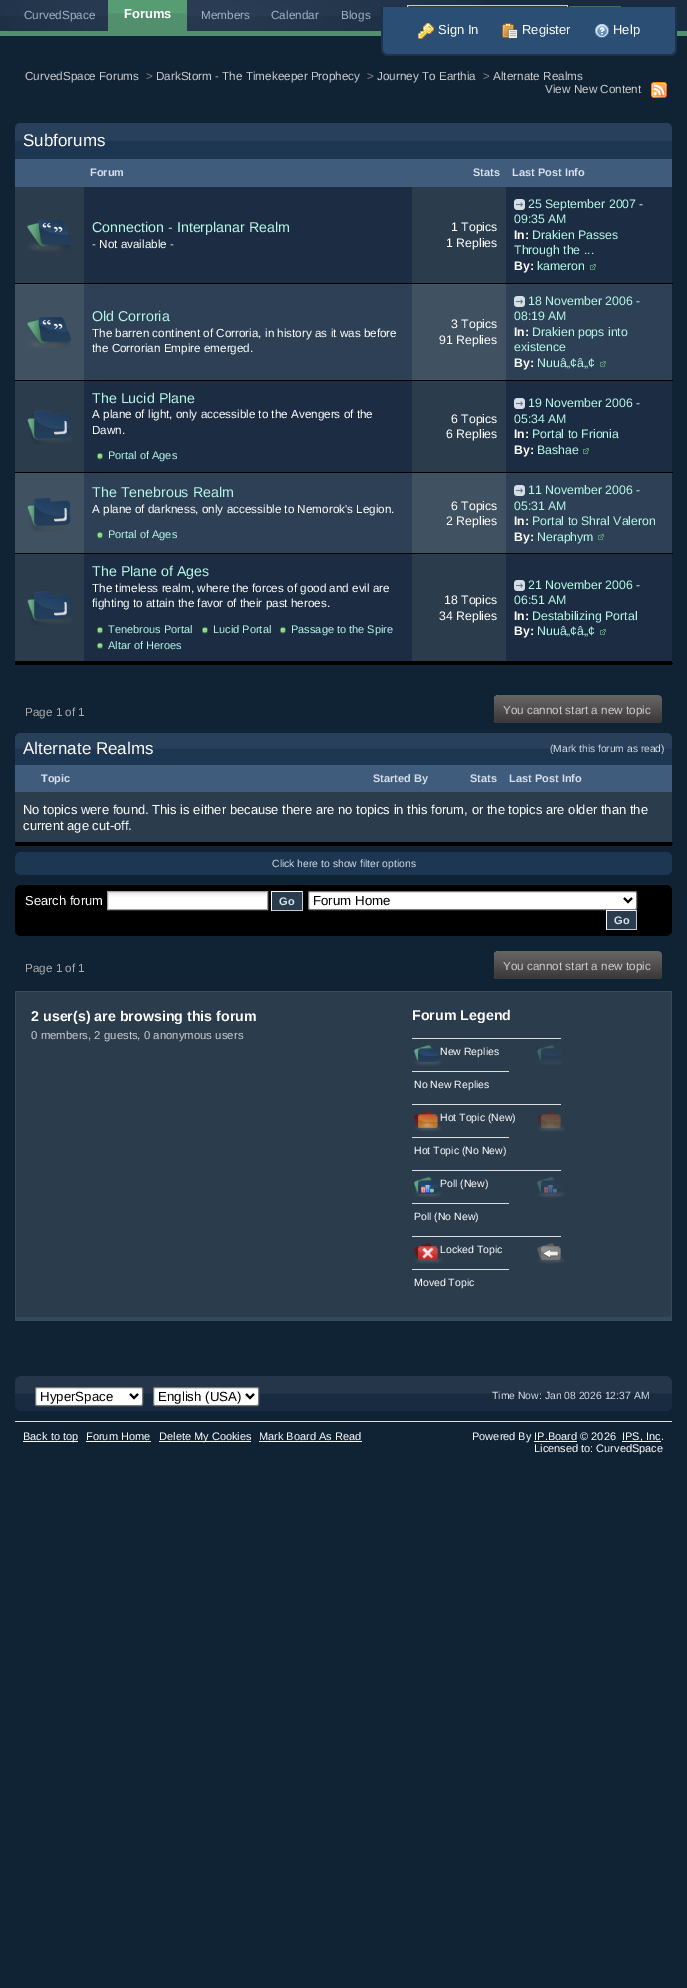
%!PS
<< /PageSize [687 1988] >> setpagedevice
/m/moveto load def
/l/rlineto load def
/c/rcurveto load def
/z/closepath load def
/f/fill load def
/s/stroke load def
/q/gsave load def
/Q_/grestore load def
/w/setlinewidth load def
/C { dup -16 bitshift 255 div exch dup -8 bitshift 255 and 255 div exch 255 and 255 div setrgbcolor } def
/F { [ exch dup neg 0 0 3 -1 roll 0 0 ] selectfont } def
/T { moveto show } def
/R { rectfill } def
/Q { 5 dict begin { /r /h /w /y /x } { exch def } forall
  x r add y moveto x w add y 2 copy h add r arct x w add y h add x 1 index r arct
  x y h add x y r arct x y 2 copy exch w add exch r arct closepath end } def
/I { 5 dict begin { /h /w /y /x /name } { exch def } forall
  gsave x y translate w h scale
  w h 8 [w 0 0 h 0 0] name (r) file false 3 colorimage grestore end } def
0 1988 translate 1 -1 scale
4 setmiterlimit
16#102335 C
0 0 687 1988 R
16#192B40 C
484 0 203 31 R
(1.rgb) 0 0 484 31 I
16#528F6C C
0 31 687 5 R
/LiberationSans-Regular 11.75 F
16#9BB2C8 C
(CurvedSpace) 24 19 T
(2.rgb) 108 0 6 31 I
(3.rgb) 114 0 73 31 I
/LiberationSans-Bold 13 F
16#FFFFFF C
(Forums) 124 18 T
/LiberationSans-Regular 11.75 F
16#9BB2C8 C
(Members) 201 19 T
(Calendar) 271 19 T
(Blogs) 341 19 T
16#000000 C
408 6 159 1 R
16#CCCCCC C
407.5 5.5 160 22 rectstroke
16#528F6C C
569 6 52 1 R
16#1A2735 C
568.5 5.5 53 20 rectstroke
16#2B4F74 C
383 7 m 292 0 l 0 43 l 0 2 -2 4 -4 4 c -284 0 l -2 0 -4 -2 -4 -4 c z f
16#1C334E C
381 7 m 296 0 l 0 43 l 0 3 -3 6 -6 6 c -284 0 l -3 0 -6 -3 -6 -6 c z 383 7 m 292 0 l 0 43 l 0 2 -2 4 -4 4 c -284 0 l -2 0 -4 -2 -4 -4 c z eofill
(4.rgb) 418 23 16 16 I
/LiberationSans-Regular 13 F
16#FFFFFF C
(Sign In) 438 34 T
(5.rgb) 502 23 16 16 I
(Register) 522 34 T
(6.rgb) 595 24 14 14 I
(Help) 613 34 T
/LiberationSans-Regular 11.7 F
16#CCCCCC C
(CurvedSpace Forums) 25 80 T
16#878787 C
(>) 146 80 T
16#CCCCCC C
(DarkStorm - The Timekeeper Prophecy) 156 80 T
16#878787 C
(>) 367 80 T
16#CCCCCC C
(Journey To Earthia) 377 80 T
16#878787 C
(>) 483 80 T
16#CCCCCC C
(Alternate Realms) 493 80 T
(View New Content) 545 93 T
(7.rgb) 651 82 16 16 I
16#1D3652 C
20 123 m 647 0 l 3 0 5 2 5 5 c 0 31 l -657 0 l 0 -31 l 0 -3 2 -5 5 -5 c z f
(8.rgb) 15 123 657 18 I
/LiberationSans-Regular 17 F
16#FFFFFF C
(Subforums) 23 146 T
16#000000 C
15 661 657 4 R
16#405C7D C
15 159 657 28 R
/LiberationSans-Bold 11 F
16#D5E0EC C
(Forum) 90 176 T
(Stats) 473 176 T
(Last Post Info) 512 176 T
16#1C2D43 C
84 187 588 96 R
16#2B3C4D C
15 187 69 96 R
(9.rgb) 27 220 44 32 I
/LiberationSans-Regular 14.25 F
16#B5F7E7 C
(Connection - Interplanar Realm) 92 232 T
/LiberationSans-Regular 11.7 F
16#FFFFFF C
(- Not available -) 92 248 T
16#2B3C4D C
412 187 94 96 R
/LiberationSans-Regular 12.3 F
16#FFFFFF C
(1 Topics) 451 231 T
(1 Replies) 446 247 T
16#000000 C
15 283 658 1 R
(10.rgb) 514 199 11 11 I
16#B5F7E7 C
(25 September 2007 -) 528 208 T
(09:35 AM) 514 223 T
/LiberationSans-Bold 12.3 F
16#FFFFFF C
(In:) 514 239 T
/LiberationSans-Regular 12.3 F
16#B5F7E7 C
(Drakien Passes) 532 239 T
(Through the ...) 514 254 T
/LiberationSans-Bold 12.3 F
16#FFFFFF C
(By:) 514 270 T
/LiberationSans-Regular 12.3 F
16#B5F7E7 C
(kameron) 537 270 T
(11.rgb) 590 264 6 6 I
16#2D4055 C
84 284 588 96 R
16#405161 C
15 284 69 96 R
(12.rgb) 27 317 44 31 I
/LiberationSans-Regular 14.25 F
16#B5F7E7 C
(Old Corroria) 92 321 T
/LiberationSans-Regular 11.7 F
16#FFFFFF C
(The barren continent of Corroria, in history as it was before) 92 337 T
(the Corrorian Empire emerged.) 92 352 T
16#405161 C
412 284 94 96 R
/LiberationSans-Regular 12.3 F
16#FFFFFF C
(3 Topics) 451 328 T
(91 Replies) 439 344 T
16#000000 C
15 380 658 1 R
(13.rgb) 514 296 11 11 I
16#B5F7E7 C
(18 November 2006 -) 528 305 T
(08:19 AM) 514 320 T
/LiberationSans-Bold 12.3 F
16#FFFFFF C
(In:) 514 336 T
/LiberationSans-Regular 12.3 F
16#B5F7E7 C
(Drakien pops into) 532 336 T
(existence) 514 351 T
/LiberationSans-Bold 12.3 F
16#FFFFFF C
(By:) 514 367 T
/LiberationSans-Regular 12.3 F
16#B5F7E7 C
(Nuuâ„¢â„¢) 537 367 T
(14.rgb) 600 361 6 6 I
16#1C2D43 C
84 381 588 91 R
16#2B3C4D C
15 381 69 91 R
(15.rgb) 27 410 45 35 I
/LiberationSans-Regular 14.25 F
16#B5F7E7 C
(The Lucid Plane) 92 403 T
/LiberationSans-Regular 11.7 F
16#FFFFFF C
(A plane of light, only accessible to the Avengers of the) 92 418 T
(Dawn.) 92 434 T
(16.rgb) 97 453 6 7 I
/LiberationSans-Regular 11 F
16#B5F7E7 C
(Portal of Ages) 108 459 T
16#2B3C4D C
412 381 94 91 R
/LiberationSans-Regular 12.3 F
16#FFFFFF C
(6 Topics) 451 423 T
(6 Replies) 446 438 T
16#000000 C
15 472 658 1 R
(10.rgb) 514 398 11 11 I
16#B5F7E7 C
(19 November 2006 -) 528 407 T
(05:34 AM) 514 423 T
/LiberationSans-Bold 12.3 F
16#FFFFFF C
(In:) 514 438 T
/LiberationSans-Regular 12.3 F
16#B5F7E7 C
(Portal to Frionia) 532 438 T
/LiberationSans-Bold 12.3 F
16#FFFFFF C
(By:) 514 454 T
/LiberationSans-Regular 12.3 F
16#B5F7E7 C
(Bashae) 537 454 T
(11.rgb) 583 448 6 6 I
16#2D4055 C
84 473 588 80 R
16#405161 C
15 473 69 80 R
(17.rgb) 27 497 44 35 I
/LiberationSans-Regular 14.25 F
16#B5F7E7 C
(The Tenebrous Realm) 92 497 T
/LiberationSans-Regular 11.7 F
16#FFFFFF C
(A plane of darkness, only accessible to Nemorok's Legion.) 92 513 T
(18.rgb) 97 532 6 7 I
/LiberationSans-Regular 11 F
16#B5F7E7 C
(Portal of Ages) 108 538 T
16#405161 C
412 473 94 80 R
/LiberationSans-Regular 12.3 F
16#FFFFFF C
(6 Topics) 451 510 T
(2 Replies) 446 525 T
16#000000 C
15 553 658 1 R
(13.rgb) 514 485 11 11 I
16#B5F7E7 C
(11 November 2006 -) 528 494 T
(05:31 AM) 514 510 T
/LiberationSans-Bold 12.3 F
16#FFFFFF C
(In:) 514 525 T
/LiberationSans-Regular 12.3 F
16#B5F7E7 C
(Portal to Shral Valeron) 532 525 T
/LiberationSans-Bold 12.3 F
16#FFFFFF C
(By:) 514 541 T
/LiberationSans-Regular 12.3 F
16#B5F7E7 C
(Neraphym) 537 541 T
(14.rgb) 598 534 6 6 I
16#1C2D43 C
84 554 588 107 R
16#2B3C4D C
15 554 69 107 R
(15.rgb) 27 591 45 35 I
/LiberationSans-Regular 14.25 F
16#B5F7E7 C
(The Plane of Ages) 92 576 T
/LiberationSans-Regular 11.7 F
16#FFFFFF C
(The timeless realm, where the forces of good and evil are) 92 592 T
(fighting to attain the favor of their past heroes.) 92 607 T
(16.rgb) 97 627 6 7 I
/LiberationSans-Regular 11 F
16#B5F7E7 C
(Tenebrous Portal) 108 633 T
(16.rgb) 202 627 6 7 I
(Lucid Portal) 213 633 T
(16.rgb) 280 627 6 7 I
(Passage to the Spire) 291 633 T
(19.rgb) 97 642 6 7 I
(Altar of Heroes) 108 649 T
16#2B3C4D C
412 554 94 107 R
/LiberationSans-Regular 12.3 F
16#FFFFFF C
(18 Topics) 444 604 T
(34 Replies) 439 620 T
16#000000 C
672 663 1 1 R
(10.rgb) 514 580 11 11 I
16#B5F7E7 C
(21 November 2006 -) 528 589 T
(06:51 AM) 514 604 T
/LiberationSans-Bold 12.3 F
16#FFFFFF C
(In:) 514 620 T
/LiberationSans-Regular 12.3 F
16#B5F7E7 C
(Destabilizing Portal) 532 620 T
/LiberationSans-Bold 12.3 F
16#FFFFFF C
(By:) 514 635 T
/LiberationSans-Regular 12.3 F
16#B5F7E7 C
(Nuuâ„¢â„¢) 537 635 T
(11.rgb) 600 629 6 6 I
/LiberationSans-Regular 11.7 F
16#ACACAC C
(Page 1 of 1) 25 716 T
(20.rgb) 494 695 6 28 I
(21.rgb) 500 695 162 28 I
16#CCCCCC C
(You cannot start a new topic) 503 714 T
16#000000 C
15 842 657 4 R
16#1D3652 C
20 733 m 647 0 l 3 0 5 2 5 5 c 0 27 l -657 0 l 0 -27 l 0 -3 2 -5 5 -5 c z f
(22.rgb) 15 733 657 16 I
/LiberationSans-Regular 17 F
16#FFFFFF C
(Alternate Realms) 23 754 T
/LiberationSans-Regular 10.25 F
16#D5DDE5 C
(\(Mark this forum as read\)) 550 752 T
16#405C7D C
15 765 657 27 R
/LiberationSans-Bold 11 F
16#D5E0EC C
(Topic) 41 782 T
(Started By) 373 782 T
(Stats) 470 782 T
(Last Post Info) 509 782 T
16#2B3C4D C
15 792 657 50 R
16#000000 C
672 843 1 1 R
/LiberationSans-Regular 13 F
16#FFFFFF C
(No topics were found. This is either because there are no topics in this forum, or the topics are older than the) 23 814 T
(current age cut-off.) 23 830 T
16#1D3652 C
15 852 657 23 6 Q f
/LiberationSans-Regular 10.4 F
16#D5DDE5 C
(Click here to show filter options) 272 867 T
16#000000 C
15 885 657 51 6 Q f
/LiberationSans-Regular 13 F
16#FFFFFF C
(Search forum) 25 905 T
108 897 159 12 R
(23.rgb) 108 892 159 5 I
16#9F9F9F C
107.5 891.5 160 18 rectstroke
16#2B3C4D C
272 892 30 18 R
16#FAFBFC C
271 891 32 1 R
16#BFCBD8 C
302 891 1 20 R
271 910 32 1 R
16#FAFBFC C
271 891 1 20 R
/LiberationSans-Bold 11 F
16#D5E0EC C
(Go) 279 905 T
16#FFFFFF C
308.5 891.5 328 18 1.5 Q q f Q_
16#767676 C
s
16#000000 C
2 w
624 898 m 4 4 l 4 -4 l s
/LiberationSans-Regular 13.25 F
(Forum Home) 313 905 T
16#2B3C4D C
607 911 29 18 R
16#FAFBFC C
606 910 31 1 R
16#BFCBD8 C
636 910 1 20 R
606 929 31 1 R
16#FAFBFC C
606 910 1 20 R
/LiberationSans-Bold 11 F
16#D5E0EC C
(Go) 614 924 T
/LiberationSans-Regular 11.7 F
16#ACACAC C
(Page 1 of 1) 25 972 T
(20.rgb) 494 951 6 28 I
(21.rgb) 500 951 162 28 I
16#CCCCCC C
(You cannot start a new topic) 503 970 T
16#2B3C4D C
16 992 655 325 R
16#334B5E C
15 991 657 1 R
671 991 1 330 R
15 1317 657 4 R
15 991 1 330 R
/LiberationSans-Bold 14.25 F
16#FFFFFF C
(2 user\(s\) are browsing this forum) 31 1021 T
/LiberationSans-Regular 11.4 F
16#CCCCCC C
(0 members, 2 guests, 0 anonymous users) 31 1039 T
/LiberationSans-Bold 14.25 F
16#FFFFFF C
(Forum Legend) 412 1020 T
16#DEDEDE C
412 1038 149 1 R
(24.rgb) 414 1045 28 21 I
/LiberationSans-Regular 10.5 F
16#FFFFFF C
(New Replies) 440 1055 T
(25.rgb) 537 1045 26 20 I
16#DEDEDE C
412 1071 97 1 R
16#FFFFFF C
(No New Replies) 414 1088 T
16#DEDEDE C
412 1104 149 1 R
(26.rgb) 414 1111 28 21 I
16#FFFFFF C
(Hot Topic \(New\)) 440 1121 T
(27.rgb) 537 1111 28 21 I
16#DEDEDE C
412 1137 97 1 R
16#FFFFFF C
(Hot Topic \(No New\)) 414 1154 T
16#DEDEDE C
412 1170 149 1 R
(28.rgb) 414 1177 28 21 I
16#FFFFFF C
(Poll \(New\)) 440 1187 T
(29.rgb) 537 1177 28 21 I
16#DEDEDE C
412 1203 97 1 R
16#FFFFFF C
(Poll \(No New\)) 414 1220 T
16#DEDEDE C
412 1236 149 1 R
(30.rgb) 414 1243 28 21 I
16#FFFFFF C
(Locked Topic) 440 1253 T
(31.rgb) 537 1243 28 21 I
16#DEDEDE C
412 1269 97 1 R
16#FFFFFF C
(Moved Topic) 414 1286 T
16#192B40 C
15 1376 657 35 6 Q f
(32.rgb) 15 1376 657 18 I
16#FFFFFF C
35.5 1387.5 107 18 1.5 Q q f Q_
16#767676 C
1 w
s
16#000000 C
2 w
130 1394 m 4 4 l 4 -4 l s
/LiberationSans-Regular 13.25 F
(HyperSpace) 40 1401 T
16#FFFFFF C
153.5 1387.5 105 18 1.5 Q q f Q_
16#767676 C
1 w
s
16#000000 C
2 w
246 1394 m 4 4 l 4 -4 l s
(English \(USA\)) 158 1401 T
/LiberationSans-Regular 10.4 F
16#D5DDE5 C
(Time Now: Jan 08 2026 12:37 AM) 492 1399 T
16#DEDEDE C
15 1421 657 1 R
16#FFFFFF C
23 1441 55 1 R
/LiberationSans-Regular 11 F
(Back to top) 23 1440 T
(Forum Home) 86 1440 T
86 1441 65 1 R
159 1441 92 1 R
(Delete My Cookies) 159 1440 T
(Mark Board As Read) 259 1440 T
259 1441 103 1 R
(Powered By IP.Board © 2026) 472 1440 T
622 1441 39 1 R
(IPS, Inc.) 622 1440 T
534 1441 43 1 R
(Licensed to: CurvedSpace) 534 1452 T
showpage
